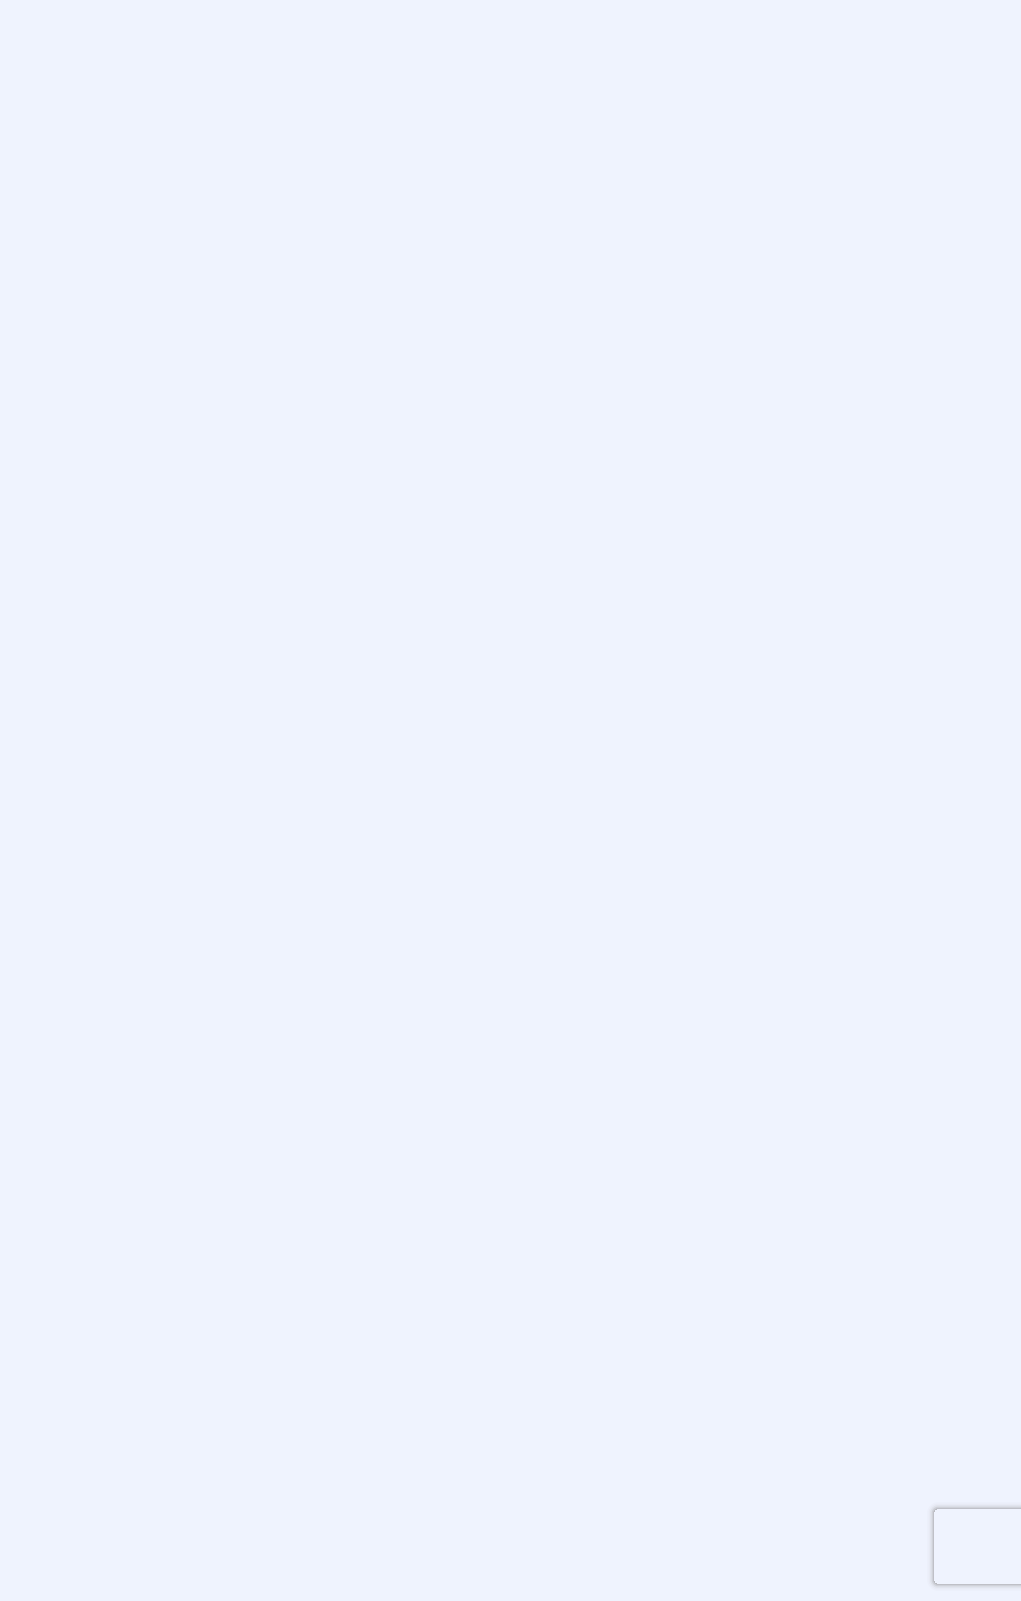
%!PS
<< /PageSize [1021 1601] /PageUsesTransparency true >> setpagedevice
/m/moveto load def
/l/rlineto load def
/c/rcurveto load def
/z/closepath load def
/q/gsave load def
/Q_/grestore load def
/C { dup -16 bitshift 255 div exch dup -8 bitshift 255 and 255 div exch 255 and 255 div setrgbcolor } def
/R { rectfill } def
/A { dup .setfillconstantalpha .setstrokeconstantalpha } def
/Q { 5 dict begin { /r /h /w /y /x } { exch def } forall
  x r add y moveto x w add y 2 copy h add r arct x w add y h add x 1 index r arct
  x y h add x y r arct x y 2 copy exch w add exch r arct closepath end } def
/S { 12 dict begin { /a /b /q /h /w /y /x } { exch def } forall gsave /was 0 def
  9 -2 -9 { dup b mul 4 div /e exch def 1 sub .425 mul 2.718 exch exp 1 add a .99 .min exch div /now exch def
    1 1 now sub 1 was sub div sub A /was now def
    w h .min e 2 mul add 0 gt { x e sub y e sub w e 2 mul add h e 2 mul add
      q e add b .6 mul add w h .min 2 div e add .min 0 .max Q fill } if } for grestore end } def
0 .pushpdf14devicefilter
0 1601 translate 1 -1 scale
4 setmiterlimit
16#EFF3FE C
0 0 1021 1601 R
q
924 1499 m 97 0 l 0 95 l -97 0 l z 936.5 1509 m 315 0 l 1.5 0 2.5 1 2.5 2.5 c 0 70 l 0 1.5 -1 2.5 -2.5 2.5 c -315 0 l -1.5 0 -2.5 -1 -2.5 -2.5 c 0 -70 l 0 -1.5 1 -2.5 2.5 -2.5 c z eoclip newpath
16#808080 C
934 1509 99 75 2.5 3 1 S
Q_
.poppdf14devicefilter showpage
